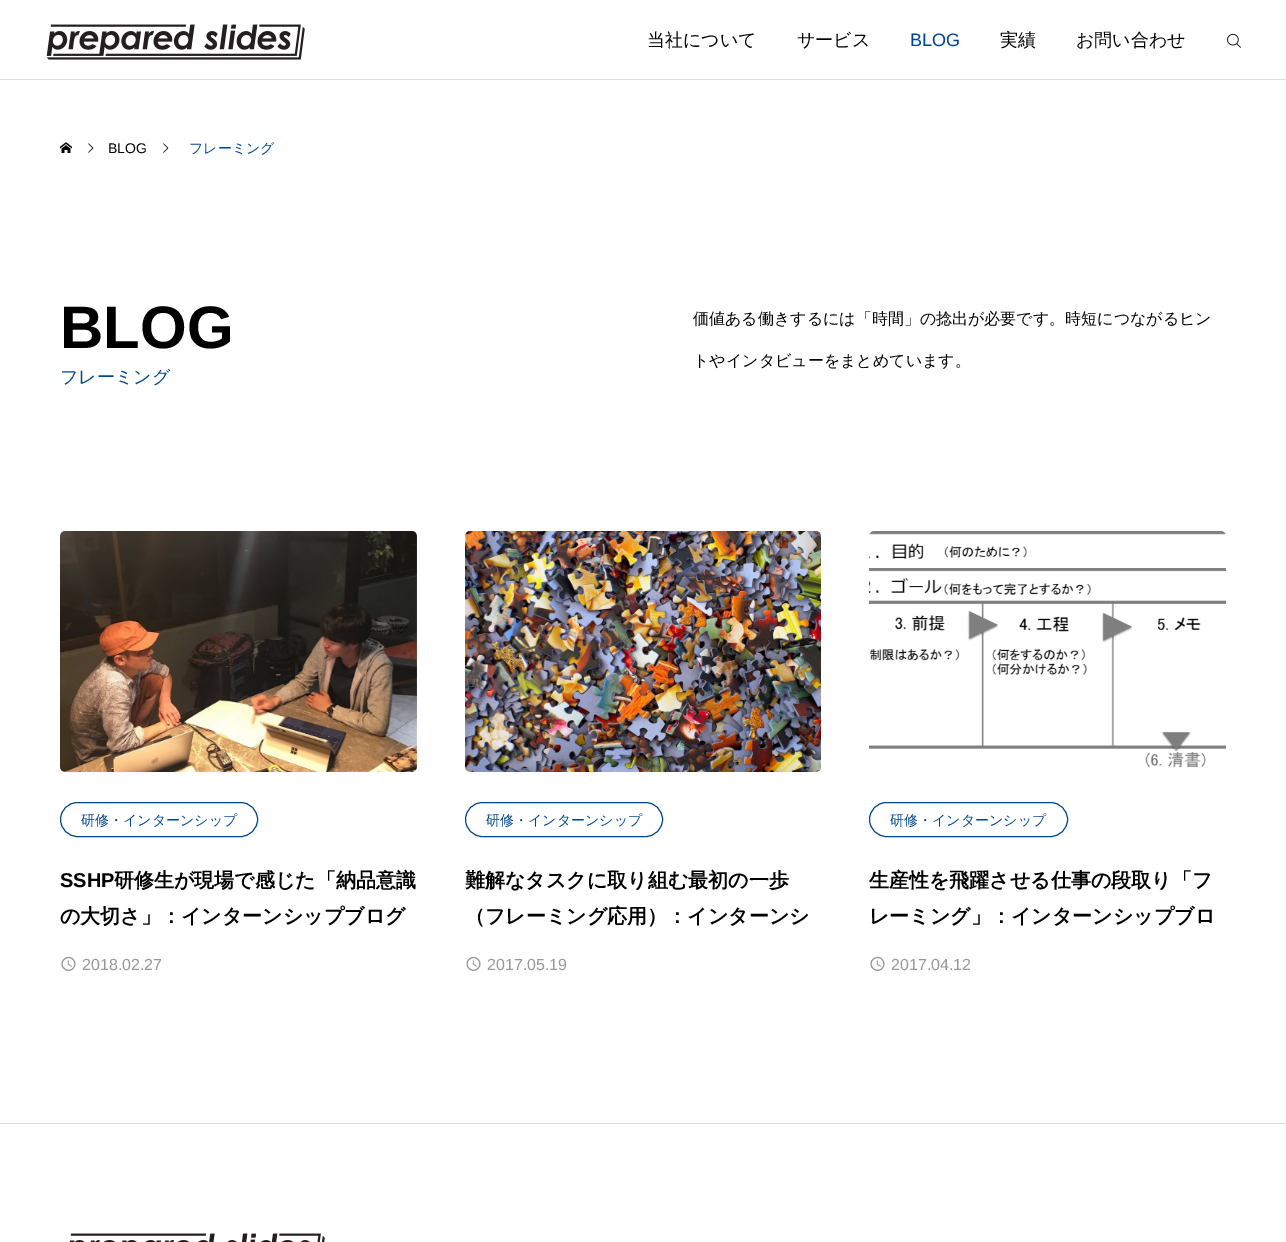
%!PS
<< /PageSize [1286 1242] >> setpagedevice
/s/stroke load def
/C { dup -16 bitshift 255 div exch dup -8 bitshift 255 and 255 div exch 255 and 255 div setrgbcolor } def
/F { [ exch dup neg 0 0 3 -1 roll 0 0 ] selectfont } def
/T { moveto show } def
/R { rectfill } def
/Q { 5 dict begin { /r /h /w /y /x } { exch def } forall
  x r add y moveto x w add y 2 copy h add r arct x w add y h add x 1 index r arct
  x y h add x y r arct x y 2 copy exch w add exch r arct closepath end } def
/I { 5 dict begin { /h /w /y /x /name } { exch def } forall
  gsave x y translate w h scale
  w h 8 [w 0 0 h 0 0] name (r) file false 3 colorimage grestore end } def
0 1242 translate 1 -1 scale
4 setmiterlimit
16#FFFFFF C
0 0 1286 1242 R
16#DDDDDD C
0 79 1286 1 R
(1.rgb) 46 24 259 36 I
/WenQuanYiZenHei-Medium 18 F
16#000000 C
(当社について) 647 46 T
(サービス) 797 46 T
/LiberationSans-Regular 18 F
16#00468C C
(BLOG) 910 46 T
/WenQuanYiZenHei-Medium 18 F
16#000000 C
(実績) 1000 46 T
(お問い合わせ) 1076 46 T
(2.rgb) 1227 33 14 15 I
(3.rgb) 60 142 12 11 I
(4.rgb) 88 143 6 10 I
/LiberationSans-Regular 14 F
(BLOG) 108 153 T
(4.rgb) 163 143 6 10 I
/WenQuanYiZenHei-Medium 14 F
16#00468C C
(フレーミング) 189 153 T
/LiberationSans-Bold 60 F
16#000000 C
(BLOG) 60 348 T
/WenQuanYiZenHei-Medium 18 F
16#00468C C
(フレーミング) 60 383 T
/WenQuanYiZenHei-Medium 16 F
16#000000 C
(価値ある働きするには「時間」の捻出が必要です。時短につながるヒン) 693 324 T
(トやインタビューをまとめています。) 693 366 T
(5.rgb) 60 531 357 241 I
16#00468C C
60.5 802.5 197 34 17 Q s
/WenQuanYiZenHei-Medium 14 F
(研修・インターンシップ) 81 825 T
/LiberationSans-Bold 20 F
16#000000 C
(SSHP) 60 887 T
/WenQuanYiZenHei-Bold 20 F
(研修生が現場で感じた「納品意識) 114 887 T
(の大切さ」：インターンシップブログ) 60 923 T
(6.rgb) 61 956 15 15 I
/LiberationSans-Regular 16 F
16#999999 C
(2018.02.27) 82 970 T
(7.rgb) 465 531 356 241 I
16#00468C C
465.5 802.5 197 34 17 Q s
/WenQuanYiZenHei-Medium 14 F
(研修・インターンシップ) 486 825 T
/WenQuanYiZenHei-Bold 20 F
16#000000 C
(難解なタスクに取り組む最初の一歩) 465 887 T
(（フレーミング応用）：インターンシ) 465 923 T
(6.rgb) 466 956 15 15 I
/LiberationSans-Regular 16 F
16#999999 C
(2017.05.19) 487 970 T
(8.rgb) 869 531 357 237 I
16#00468C C
869.5 802.5 198 34 17 Q s
/WenQuanYiZenHei-Medium 14 F
(研修・インターンシップ) 890 825 T
/WenQuanYiZenHei-Bold 20 F
16#000000 C
(生産性を飛躍させる仕事の段取り「フ) 869 887 T
(レーミング」：インターンシップブロ) 869 923 T
(6.rgb) 870 956 15 15 I
/LiberationSans-Regular 16 F
16#999999 C
(2017.04.12) 891 970 T
16#DDDDDD C
0 1123 1286 1 R
(9.rgb) 69 1233 256 9 I
showpage
